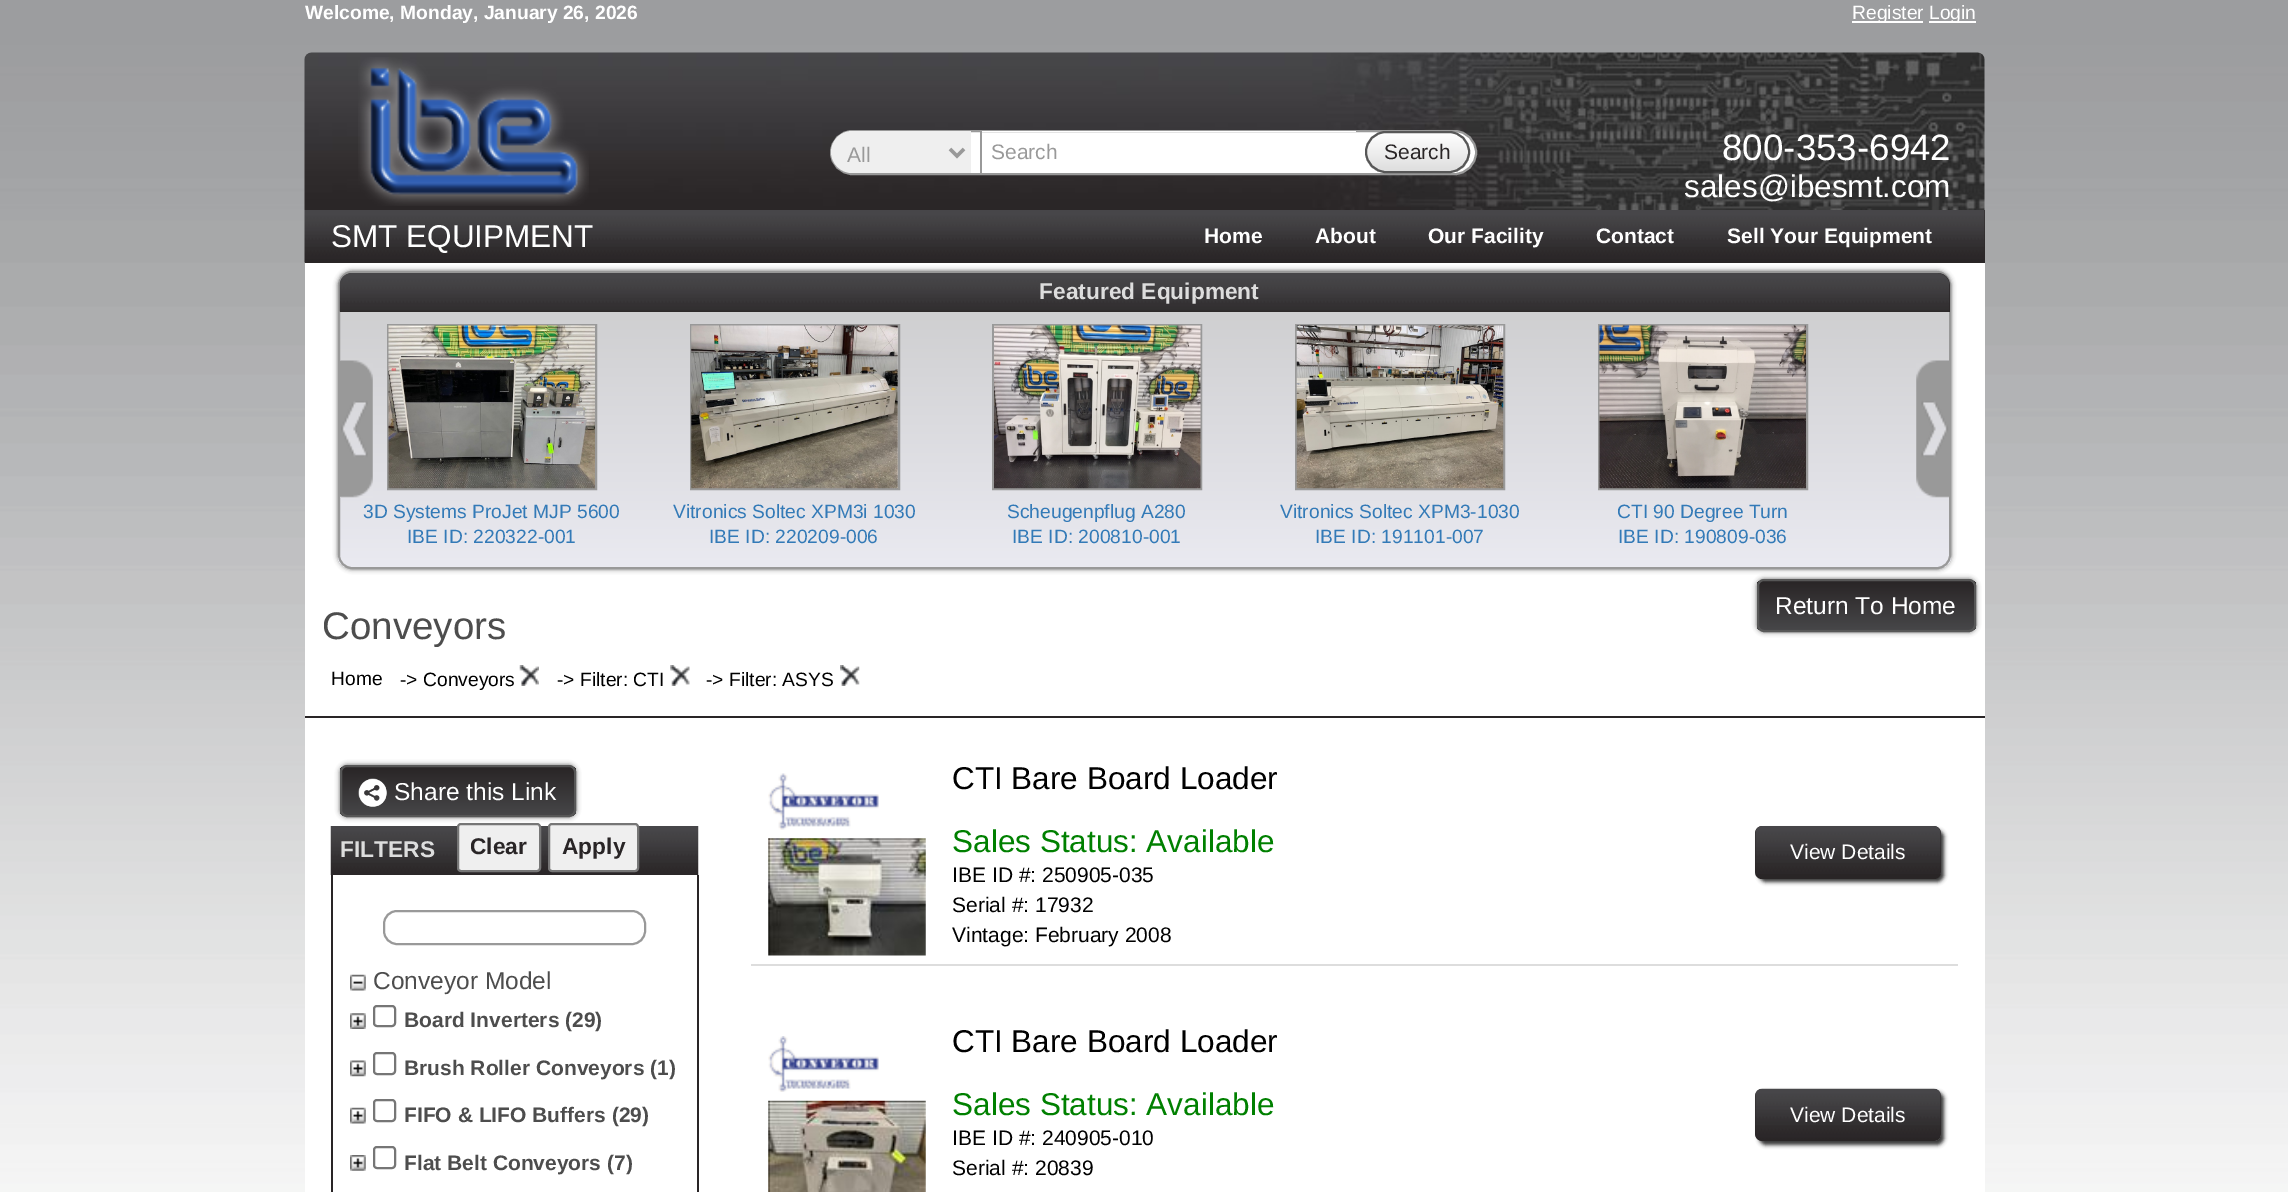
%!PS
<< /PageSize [2288 1192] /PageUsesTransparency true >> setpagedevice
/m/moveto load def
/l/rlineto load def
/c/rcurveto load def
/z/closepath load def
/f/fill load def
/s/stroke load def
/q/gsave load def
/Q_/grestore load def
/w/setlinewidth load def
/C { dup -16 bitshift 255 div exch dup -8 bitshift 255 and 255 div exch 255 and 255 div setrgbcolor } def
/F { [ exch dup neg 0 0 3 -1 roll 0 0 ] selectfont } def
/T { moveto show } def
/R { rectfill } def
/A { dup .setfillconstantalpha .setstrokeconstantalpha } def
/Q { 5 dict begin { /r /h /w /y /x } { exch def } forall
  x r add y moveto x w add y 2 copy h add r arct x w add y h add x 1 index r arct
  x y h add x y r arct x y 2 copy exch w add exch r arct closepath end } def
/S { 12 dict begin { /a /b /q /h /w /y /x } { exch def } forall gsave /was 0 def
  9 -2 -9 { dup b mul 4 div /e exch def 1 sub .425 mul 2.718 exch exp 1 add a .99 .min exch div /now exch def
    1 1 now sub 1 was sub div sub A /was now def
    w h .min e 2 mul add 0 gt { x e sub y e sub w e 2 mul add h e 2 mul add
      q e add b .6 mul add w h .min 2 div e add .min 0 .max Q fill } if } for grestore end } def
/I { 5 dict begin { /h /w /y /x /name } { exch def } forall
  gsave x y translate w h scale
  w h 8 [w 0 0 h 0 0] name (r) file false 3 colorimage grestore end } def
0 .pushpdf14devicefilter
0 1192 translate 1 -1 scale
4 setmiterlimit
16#FFFFFF C
0 0 2288 1192 R
(1.rgb) 0 0 2288 1192 I
/LiberationSans-Bold 19.25 F
(Welcome, Monday, January 26, 2026) 305 19 T
1852 21 71 2 R
/LiberationSans-Regular 19.25 F
(Register) 1852 19 T
1929 21 47 2 R
(Login) 1929 19 T
(2.rgb) 304 52 1681 158 I
(3.rgb) 358 57 231 149 I
831 131 645 43 21.5 Q q f Q_
16#999999 C
2 w
s
16#EFEFEF C
852 131 m 119 0 l 0 42 l -119 0 l -11.5 0 -21 -9.5 -21 -21 c 0 -11.5 9.5 -21 21 -21 c z f
16#999999 C
3.5 w
950 149 m 7 7 l 7 -7 l s
/LiberationSans-Regular 21 F
(All) 847 162 T
16#FFFFFF C
982 131 374 1 R
16#999999 C
980 131 2 42 R
(Search) 991 159 T
q
1365 131 105 42 21 Q clip newpath
q 1365 133 m 105 0 l 0 39 l -105 0 l z clip newpath
<< /ShadingType 2 /ColorSpace /DeviceRGB /Coords [1418 133 1418 172] /Extend [true true] /Function << /FunctionType 2 /Domain [0 1] /C0 [1 1 1] /C1 [.867 .867 .867] /N 1 >> >> shfill Q_
Q_
16#575757 C
2 w
1366 132 103 40 20 Q s
16#292526 C
(Search) 1384 159 T
/LiberationSans-Regular 36.75 F
16#FFFFFF C
(800-353-6942) 1722 160 T
/LiberationSans-Regular 31.5 F
(sales@ibesmt.com) 1684 197 T
16#292526 C
305 210 1680 53 R
(4.rgb) 304 210 1681 53 I
16#FFFFFF C
(SMT EQUIPMENT) 331 247 T
/LiberationSans-Bold 21 F
(Home) 1204 243 T
(About) 1315 243 T
(Our Facility) 1428 243 T
(Contact) 1596 243 T
(Sell Your Equipment) 1727 243 T
305 263 1680 929 R
16#666666 C
338 271 1613 298 14 2.5 1 S
q
338 271 1613 298 14 Q clip newpath
q 338 273 m 1613 0 l 0 294 l -1613 0 l z clip newpath
<< /ShadingType 2 /ColorSpace /DeviceRGB /Coords [1145 273 1145 567] /Extend [true true] /Function << /FunctionType 2 /Domain [0 1] /C0 [.796 .796 .8] /C1 [.918 .918 .945] /N 1 >> >> shfill Q_
Q_
16#999999 C
339 272 1611 296 13 Q s
16#292526 C
352 273 m 1586 0 l 6.5 0 12 5.5 12 12 c 0 27 l -1610 0 l 0 -27 l 0 -6.5 5.5 -12 12 -12 c z f
(5.rgb) 339 273 1611 39 I
/LiberationSans-Bold 22.75 F
16#DDDDDD C
(Featured Equipment) 1039 299 T
(6.rgb) 340 360 33 138 I
(7.rgb) 1916 360 33 138 I
16#999999 C
388 325 208 164 rectstroke
(8.rgb) 388 325 207 164 I
/LiberationSans-Regular 19.25 F
16#337AB7 C
(3D Systems ProJet MJP 5600) 363 518 T
(IBE ID: 220322-001) 407 543 T
16#999999 C
691 325 208 164 rectstroke
(9.rgb) 691 325 207 164 I
16#337AB7 C
(Vitronics Soltec XPM3i 1030) 673 518 T
(IBE ID: 220209-006) 709 543 T
16#999999 C
993 325 208 164 rectstroke
(10.rgb) 994 325 207 164 I
16#337AB7 C
(Scheugenpflug A280) 1007 518 T
(IBE ID: 200810-001) 1012 543 T
16#999999 C
1296 325 208 164 rectstroke
(11.rgb) 1296 325 208 164 I
16#337AB7 C
(Vitronics Soltec XPM3-1030) 1280 518 T
(IBE ID: 191101-007) 1315 543 T
16#999999 C
1599 325 208 164 rectstroke
(12.rgb) 1599 325 207 164 I
16#337AB7 C
(CTI 90 Degree Turn) 1617 518 T
(IBE ID: 190809-036) 1618 543 T
16#292526 C
305 716 1680 2 R
16#666666 C
1757 579 219 53 7 2.5 1 S
q
1757 579 219 53 7 Q clip newpath
q 1757 581 m 219 0 l 0 49 l -219 0 l z clip newpath
<< /ShadingType 2 /ColorSpace /DeviceRGB /Coords [1866 581 1866 630] /Extend [true true] /Function << /FunctionType 2 /Domain [0 1] /C0 [.161 .145 .149] /C1 [.278 .278 .286] /N 1 >> >> shfill Q_
Q_
16#575757 C
1758 580 217 51 6 Q s
/LiberationSans-Regular 24.5 F
16#FFFFFF C
(Return To Home) 1775 614 T
/LiberationSans-Regular 38.5 F
16#4D4D4D C
(Conveyors) 322 639 T
/LiberationSans-Regular 19.25 F
16#000000 C
(Home) 331 685 T
(-> Conveyors) 400 686 T
(13.rgb) 519 665 20 21 I
(-> Filter: CTI) 557 686 T
(14.rgb) 670 665 20 21 I
(-> Filter: ASYS) 706 686 T
(15.rgb) 840 665 20 21 I
16#666666 C
340 765 236 52 7 2.5 1 S
q
340 765 236 52 7 Q clip newpath
q 340 767 m 236 0 l 0 49 l -236 0 l z clip newpath
<< /ShadingType 2 /ColorSpace /DeviceRGB /Coords [458 767 458 816] /Extend [true true] /Function << /FunctionType 2 /Domain [0 1] /C0 [.161 .145 .149] /C1 [.278 .278 .286] /N 1 >> >> shfill Q_
Q_
16#575757 C
341 766 234 50 6 Q s
(16.rgb) 358 778 29 29 I
/LiberationSans-Regular 24.5 F
16#FFFFFF C
(Share this Link) 394 800 T
(17.rgb) 330 826 369 49 I
/LiberationSans-Bold 22.75 F
16#DDDDDD C
(FILTERS) 340 857 T
16#EFEFEF C
458 824 82 47 3 Q q f Q_
16#767676 C
s
16#292526 C
(Clear) 470 854 T
16#EFEFEF C
549 824 89 47 3 Q q f Q_
16#767676 C
s
16#292526 C
(Apply) 562 854 T
697 875 2 317 R
331 875 2 317 R
16#999999 C
384 911 261 33 13 Q s
(18.rgb) 350 974 16 17 I
/LiberationSans-Regular 24.5 F
16#4D4D4D C
(Conveyor Model) 373 989 T
(19.rgb) 350 1013 16 16 I
16#767676 C
374 1006 21 20 3 Q s
/LiberationSans-Bold 21 F
16#4D4D4D C
(Board Inverters \(29\)) 404 1027 T
(20.rgb) 350 1060 16 17 I
16#767676 C
374 1053 21 21 3 Q s
16#4D4D4D C
(Brush Roller Conveyors \(1\)) 404 1075 T
(21.rgb) 350 1107 16 17 I
16#767676 C
374 1100 21 21 3 Q s
16#4D4D4D C
(FIFO & LIFO Buffers \(29\)) 404 1122 T
(22.rgb) 350 1155 16 16 I
16#767676 C
374 1147 21 21 3 Q s
16#4D4D4D C
(Flat Belt Conveyors \(7\)) 404 1170 T
16#DDDDDD C
751 964 1207 2 R
(23.rgb) 768 773 111 57 I
(24.rgb) 768 838 158 118 I
/LiberationSans-Regular 31.5 F
16#000000 C
(CTI Bare Board Loader) 952 789 T
16#008000 C
(Sales Status: Available) 952 852 T
16#333333 C
1759 830 185 52 7 2 1 S
16#292526 C
1755 826 186 53 7 Q f
(25.rgb) 1755 826 186 48 I
/LiberationSans-Regular 21 F
16#FFFFFF C
(View Details) 1790 859 T
16#000000 C
(IBE ID #: 250905-035) 952 882 T
(Serial #: 17932) 952 912 T
(Vintage: February 2008) 952 942 T
(26.rgb) 768 1036 111 56 I
(27.rgb) 768 1100 158 92 I
/LiberationSans-Regular 31.5 F
(CTI Bare Board Loader) 952 1052 T
16#008000 C
(Sales Status: Available) 952 1115 T
16#333333 C
1759 1092 185 53 7 2 1 S
16#292526 C
1755 1089 186 52 7 Q f
(28.rgb) 1755 1088 186 53 I
/LiberationSans-Regular 21 F
16#FFFFFF C
(View Details) 1790 1122 T
16#000000 C
(IBE ID #: 240905-010) 952 1145 T
(Serial #: 20839) 952 1175 T
.poppdf14devicefilter showpage
